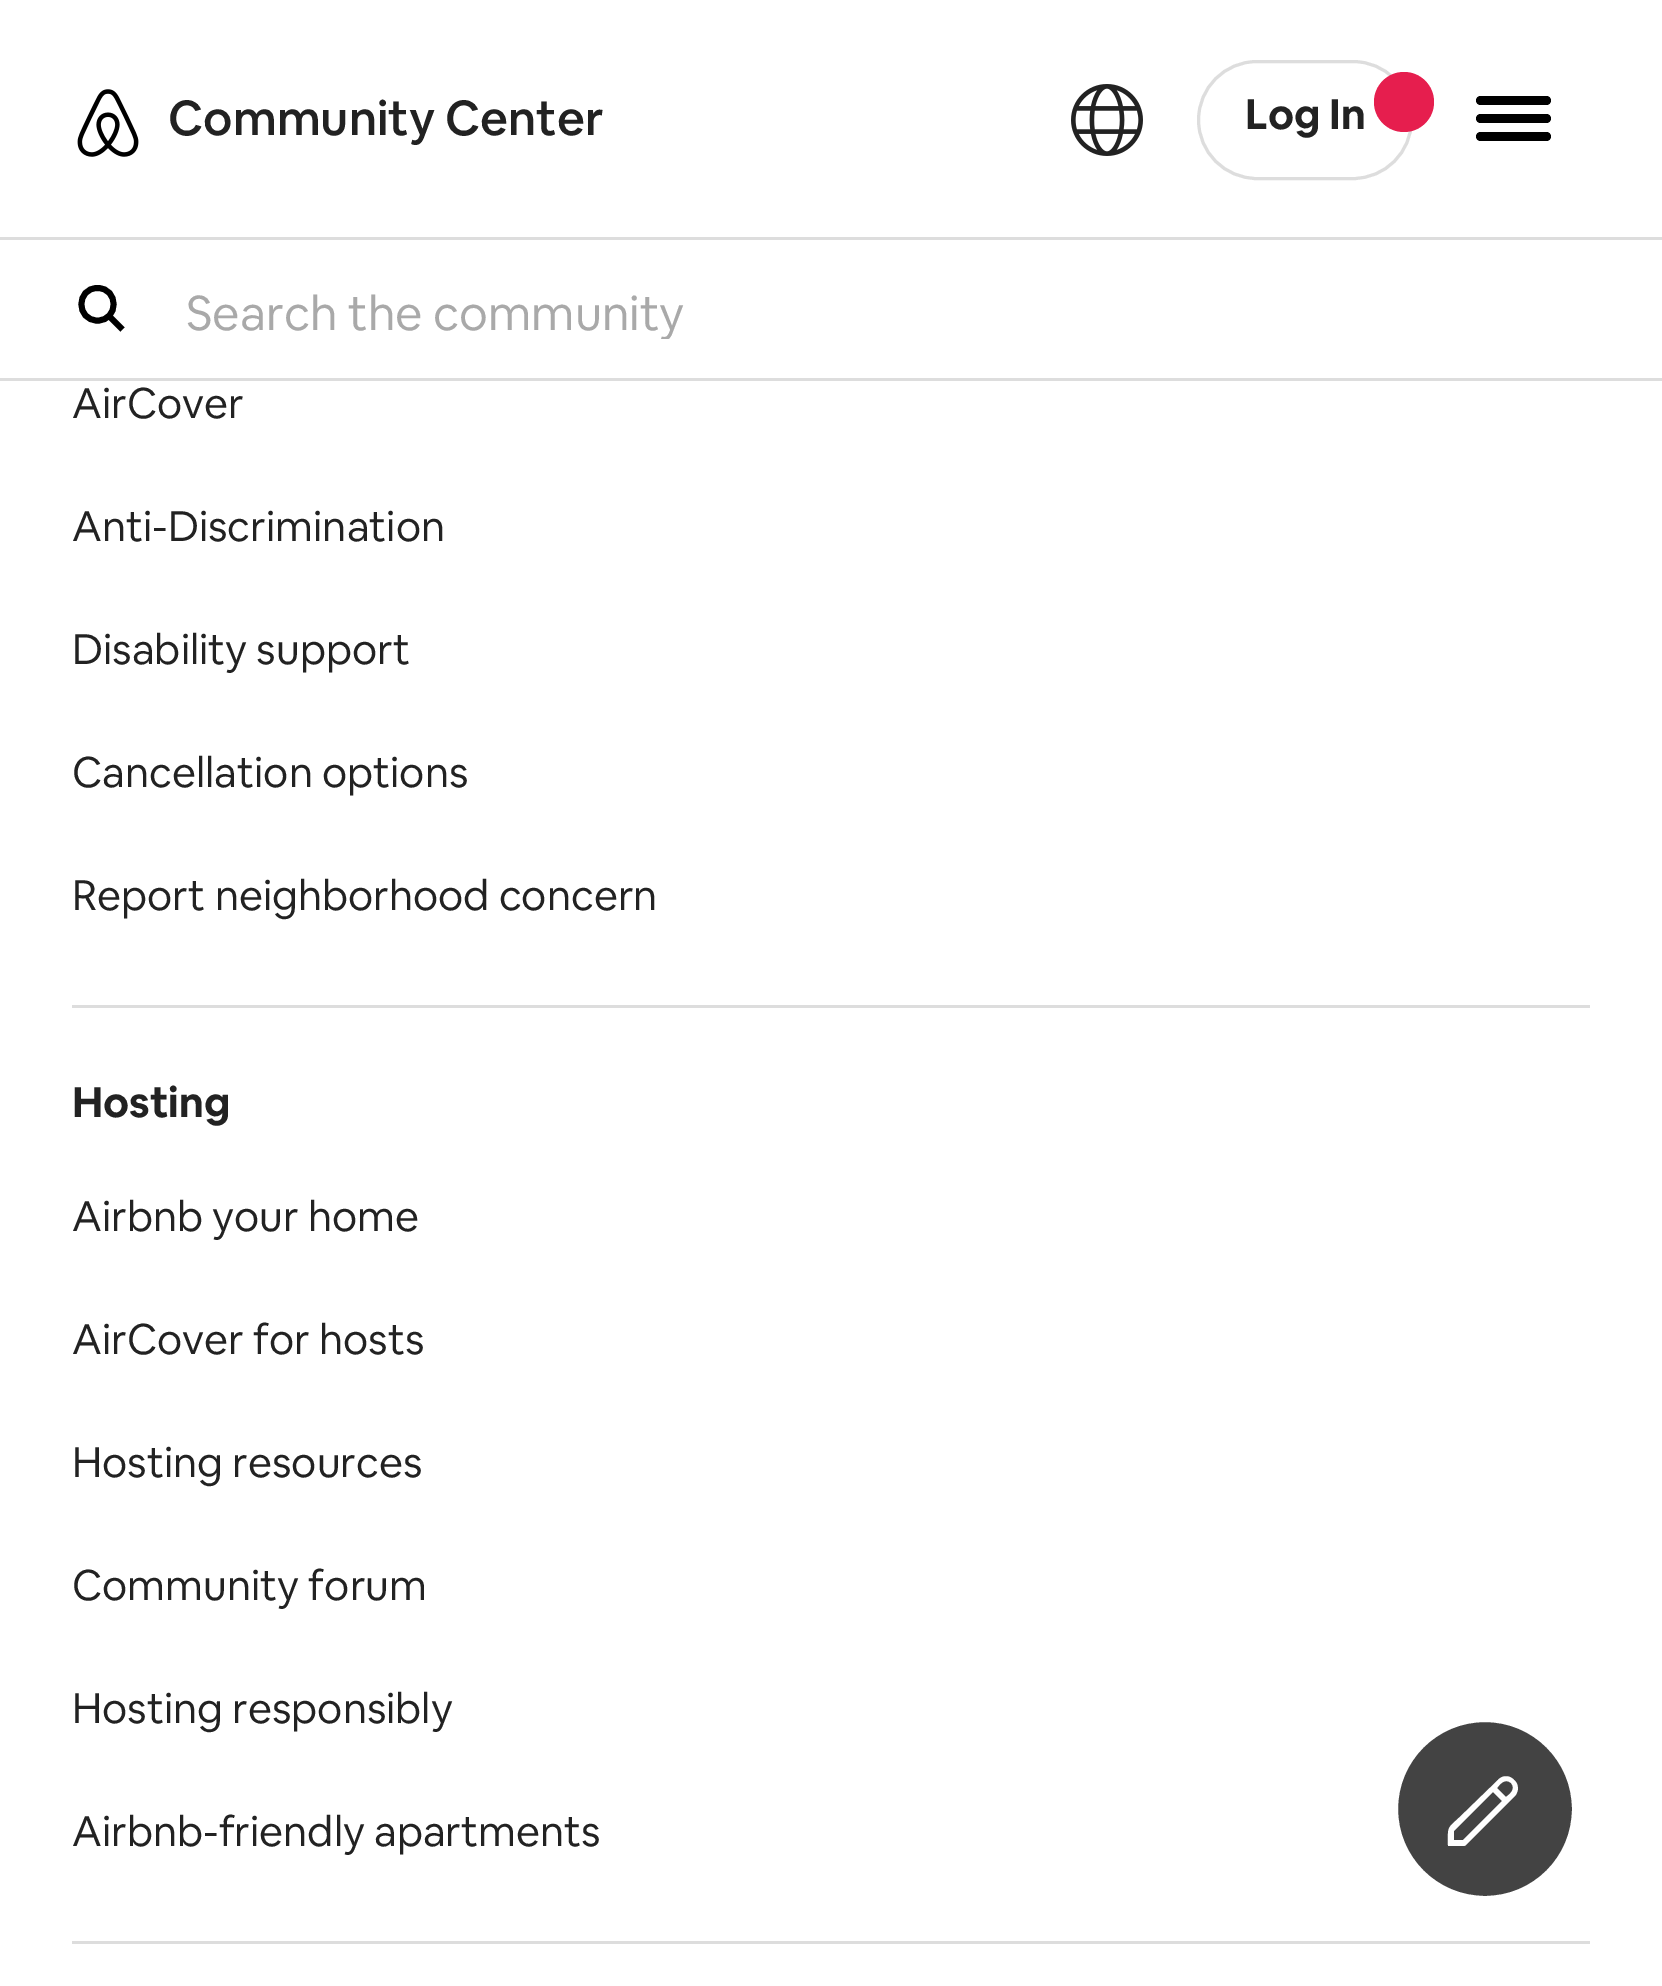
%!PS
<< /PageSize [1662 1986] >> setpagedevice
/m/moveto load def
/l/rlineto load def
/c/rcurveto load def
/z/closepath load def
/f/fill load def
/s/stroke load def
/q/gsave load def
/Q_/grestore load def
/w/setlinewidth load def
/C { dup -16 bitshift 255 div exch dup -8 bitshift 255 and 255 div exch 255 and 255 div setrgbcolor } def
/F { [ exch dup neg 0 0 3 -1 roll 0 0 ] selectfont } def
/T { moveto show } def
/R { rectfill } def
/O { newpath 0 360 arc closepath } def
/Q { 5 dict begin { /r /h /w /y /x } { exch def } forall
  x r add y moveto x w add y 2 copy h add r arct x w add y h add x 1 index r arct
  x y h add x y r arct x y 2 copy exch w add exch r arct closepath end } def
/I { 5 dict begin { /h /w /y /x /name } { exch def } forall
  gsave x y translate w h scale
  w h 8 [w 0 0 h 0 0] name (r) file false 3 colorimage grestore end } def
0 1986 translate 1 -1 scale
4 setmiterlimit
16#FFFFFF C
0 0 1662 1986 R
16#DDDDDD C
0 237 1662 3 R
(1.rgb) 77 89 62 68 I
/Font-Medium 48 F
16#222222 C
(Community Center) 168 135 T
(2.rgb) 1071 84 72 72 I
16#DDDDDD C
3 w
1198.5 61.5 213 117 58.5 Q s
/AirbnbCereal-Bold 42 F
16#222222 C
(Log In) 1245 129 T
16#E61E4E C
1404 102 30 O f
16#000000 C
1476 96 75 9 4.5 Q f
1476 114 75 9 4.5 Q f
1476 132 75 9 4.5 Q f
16#DDDDDD C
0 378 1662 3 R
16#000000 C
5.9 w
97.5 320.5 m 21.5 0 21.5 -32.5 0 -32.5 c -21.5 0 -21.5 32.5 0 32.5 c z 109 316 m 13.5 13.5 l s
q
186 291 1368 48 rectclip
/AirbnbCereal-Regular 48 F
16#A9A9A9 C
(Search the community) 186 330 T
Q_
16#DDDDDD C
72 1005 1518 3 R
/AirbnbCereal-Regular 42 F
16#222222 C
(AirCover) 72 418 T
(Anti-Discrimination) 72 541 T
(Disability support) 72 664 T
(Cancellation options) 72 787 T
(Report neighborhood concern) 72 910 T
/AirbnbCereal-Bold 42 F
(Hosting) 72 1117 T
16#DDDDDD C
72 1941 1518 3 R
/AirbnbCereal-Regular 42 F
16#222222 C
(Airbnb your home) 72 1231 T
(AirCover for hosts) 72 1354 T
(Hosting resources) 72 1477 T
(Community forum) 72 1600 T
(Hosting responsibly) 72 1723 T
(Airbnb-friendly apartments) 72 1846 T
16#434343 C
1485 1809 90 O q f Q_
16#FFFFFF C
6 w
s
1498 1780 m 4 -5 12 -5 16 0 c 5 4 5 11 1 16 c -48 48 l -1 1 -2 2 -4 2 c -15 0 l 0 -23 -2 -15 18 -35 c z 1493 1792 m -39 39 l 0 9 l 9 0 l 39 -39 l z 1511 1783 m -6 -5 -11 1 -14 5 c 9 9 l 4 -3 10 -8 5 -14 c z f
showpage
